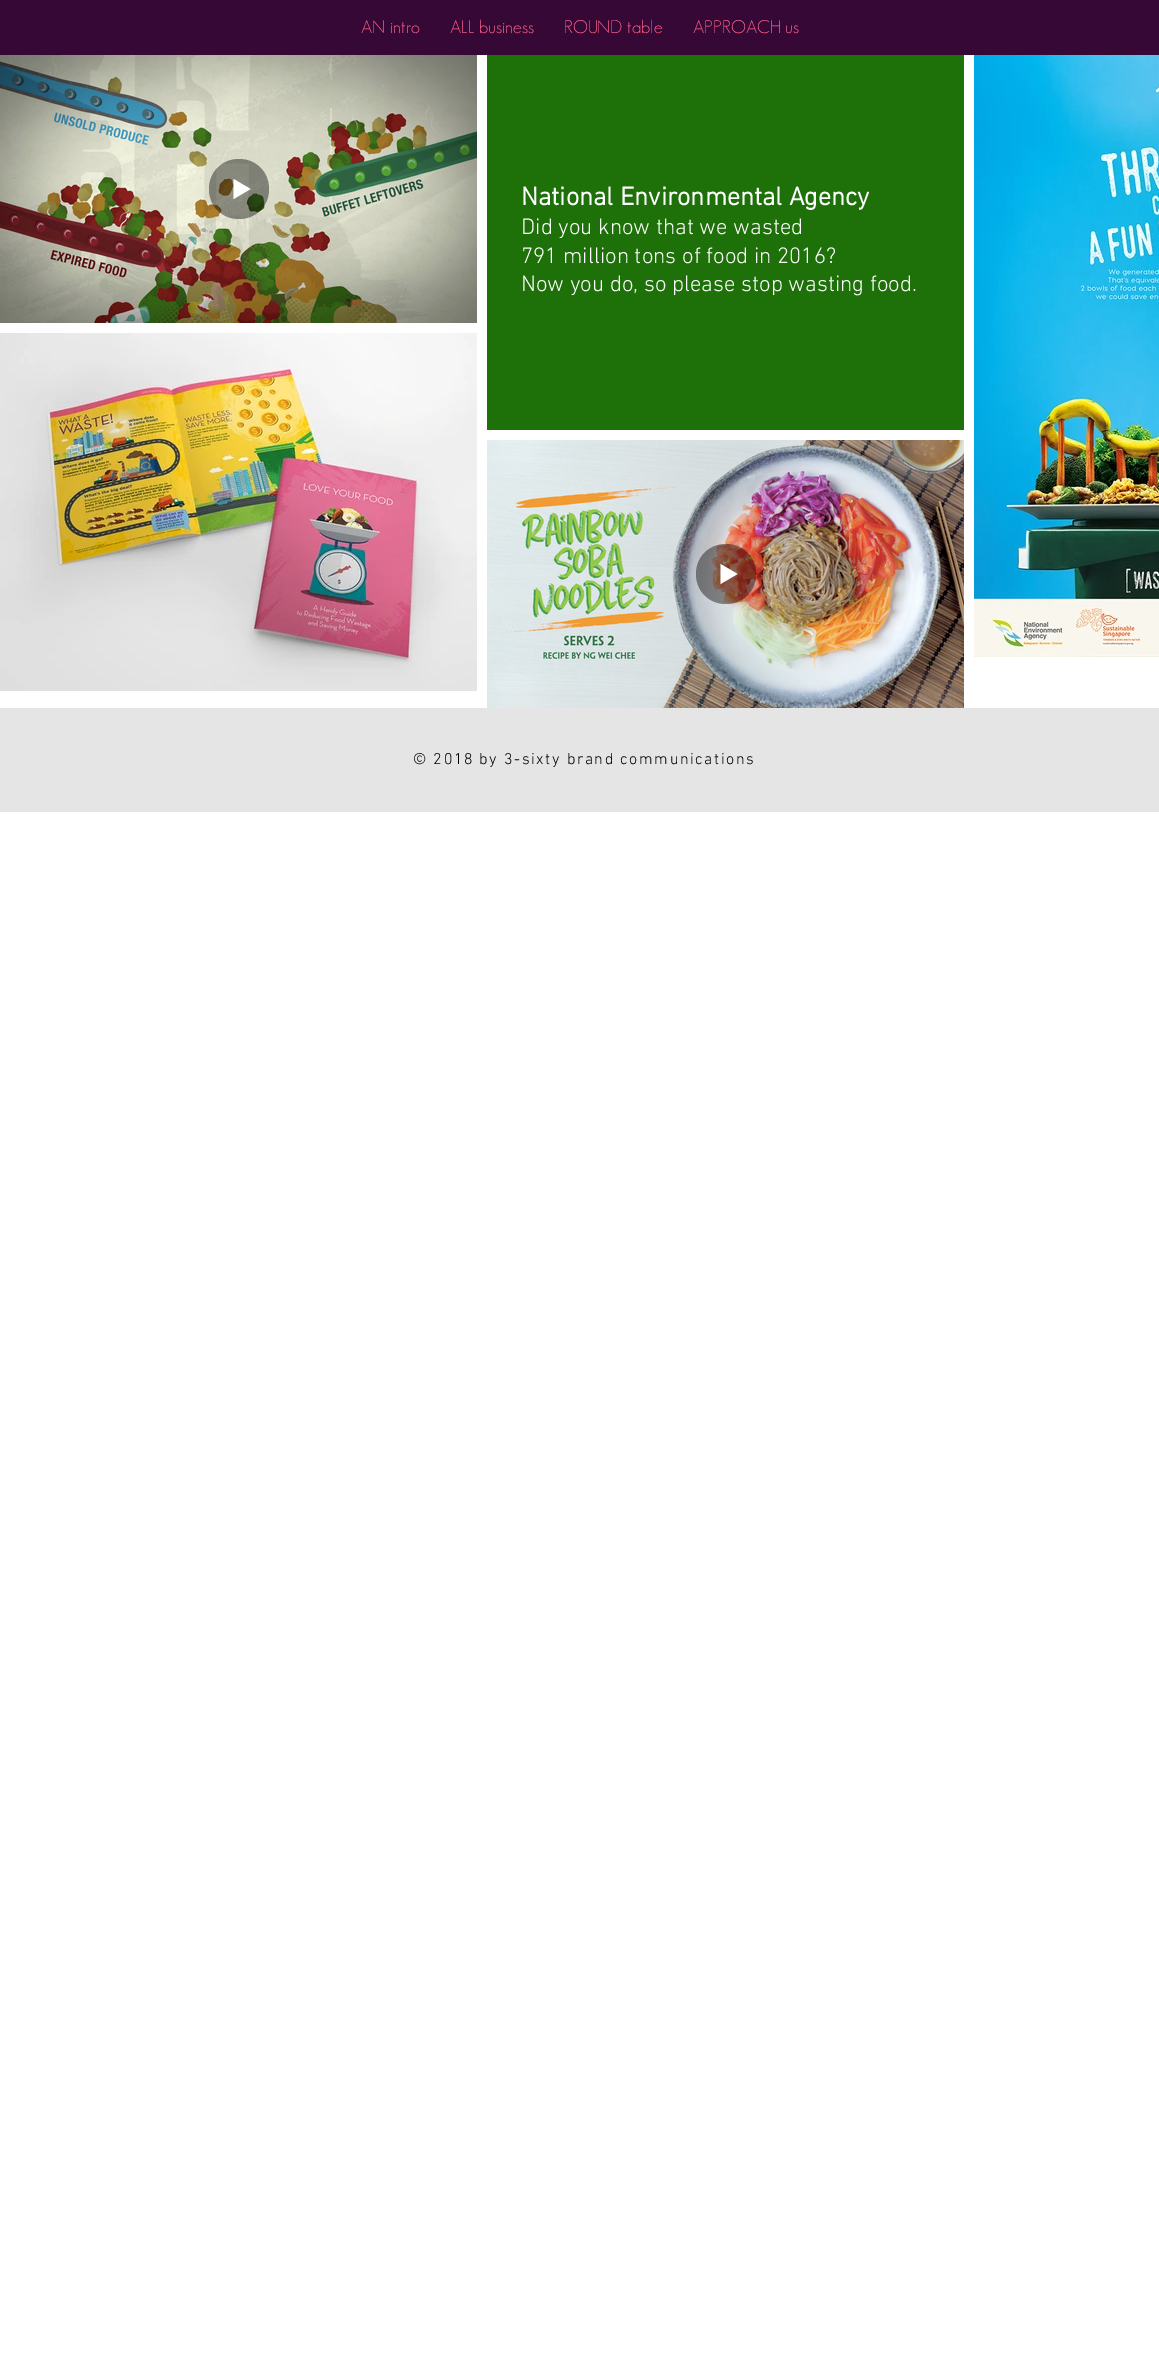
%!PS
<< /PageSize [1159 2371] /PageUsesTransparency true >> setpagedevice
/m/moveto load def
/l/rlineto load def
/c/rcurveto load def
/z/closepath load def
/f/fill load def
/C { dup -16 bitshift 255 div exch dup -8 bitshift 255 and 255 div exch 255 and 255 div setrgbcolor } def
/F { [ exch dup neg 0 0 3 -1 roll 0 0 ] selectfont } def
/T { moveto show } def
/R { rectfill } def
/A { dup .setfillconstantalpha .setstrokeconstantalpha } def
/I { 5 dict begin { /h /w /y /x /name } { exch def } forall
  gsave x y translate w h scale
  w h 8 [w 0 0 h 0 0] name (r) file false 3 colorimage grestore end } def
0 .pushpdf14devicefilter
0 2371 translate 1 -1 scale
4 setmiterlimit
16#FFFFFF C
0 0 1159 2371 R
16#360836 C
0 0 1159 55 R
/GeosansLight-Light 18 F
16#FF5E8B C
(AN intro) 361 33 T
(ALL business) 450 33 T
(ROUND table) 564 33 T
(APPROACH us) 693 33 T
(1.rgb) 0 55 477 268 I
0.42 A
16#000000 C
239 159 m 17 0 30 13 30 30 c 0 17 -13 30 -30 30 c -17 0 -30 -13 -30 -30 c 0 -17 13 -30 30 -30 c z eofill
1 A
16#FFFFFF C
250.5 189 m -17 10 l 0 -20 l z f
16#1E7009 C
487 55 477 375 R
/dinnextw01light-Bold 26.1 F
16#FFFFFF C
(National Environmental Agency) 521 205 T
/dinnextw01light-Light 22.75 F
(Did you know that we wasted) 521 234 T
(791 million tons of food in 2016?) 521 263 T
(Now you do, so please stop wasting food.) 521 291 T
(2.rgb) 974 55 185 602 I
(3.rgb) 0 333 477 358 I
(4.rgb) 487 440 477 268 I
0.42 A
16#000000 C
726 544 m 17 0 30 13 30 30 c 0 17 -13 30 -30 30 c -17 0 -30 -13 -30 -30 c 0 -17 13 -30 30 -30 c z eofill
1 A
16#FFFFFF C
737.5 574 m -17 10 l 0 -20 l z f
16#E6E5E5 C
0 708 1159 104 R
/dinnextw01light-Light 16 F
16#000000 C
413 764 m 1.6 0 (© 2018 by 3-sixty brand communications) ashow
.poppdf14devicefilter showpage
